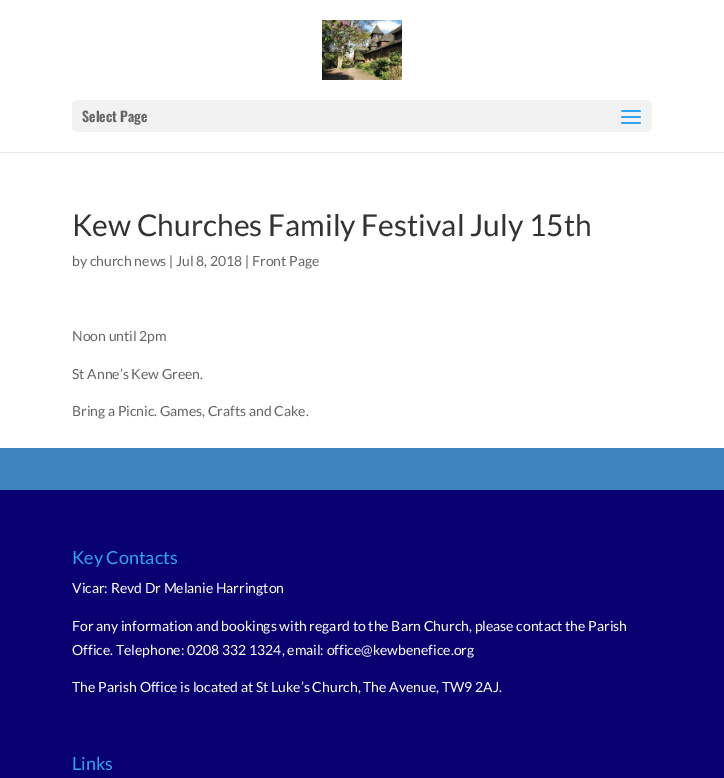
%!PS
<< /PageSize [724 778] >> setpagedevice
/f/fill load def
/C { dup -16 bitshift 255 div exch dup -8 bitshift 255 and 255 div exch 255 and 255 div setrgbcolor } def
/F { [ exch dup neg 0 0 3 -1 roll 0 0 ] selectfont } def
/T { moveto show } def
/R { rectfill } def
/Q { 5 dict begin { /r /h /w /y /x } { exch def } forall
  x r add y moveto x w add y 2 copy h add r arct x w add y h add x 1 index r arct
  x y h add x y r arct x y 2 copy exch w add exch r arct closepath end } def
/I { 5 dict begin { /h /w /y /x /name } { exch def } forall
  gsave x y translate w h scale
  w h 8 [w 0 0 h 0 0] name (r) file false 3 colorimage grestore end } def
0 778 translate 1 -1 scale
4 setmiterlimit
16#3F83BF C
0 0 724 778 R
16#E6E6E6 C
0 152 724 1 R
16#FFFFFF C
0 0 724 152 R
(1.rgb) 322 20 80 60 I
16#F2F2F2 C
72 100 580 32 5 Q f
/Oswald-SemiBold 14 F
16#666666 C
(Select Page) 82 122 T
(2.rgb) 621 110 20 14 I
16#FFFFFF C
0 153 724 295 R
/Lato-Regular 30 F
16#333333 C
(Kew Churches Family Festival July 15th) 72 236 T
/Lato-Regular 14 F
16#666666 C
(by church news | Jul 8, 2018 | Front Page) 72 266 T
(Noon until 2pm) 72 341 T
(St Anne’s Kew Green.) 72 379 T
(Bring a Picnic. Games, Crafts and Cake.) 72 416 T
16#090072 C
0 490 724 288 R
/Lato-Regular 18 F
16#2EA3F2 C
(Key Contacts) 72 564 T
/Lato-Regular 14 F
16#FFFFFF C
(Vicar: Revd Dr Melanie Harrington) 72 593 T
(For any information and bookings with regard to the Barn Church, please contact the Parish) 72 631 T
(Office. Telephone: 0208 332 1324, email: office@kewbenefice.org) 72 655 T
(The Parish Office is located at St Luke’s Church, The Avenue, TW9 2AJ.) 72 692 T
/Lato-Regular 18 F
16#2EA3F2 C
(Links) 72 770 T
showpage
